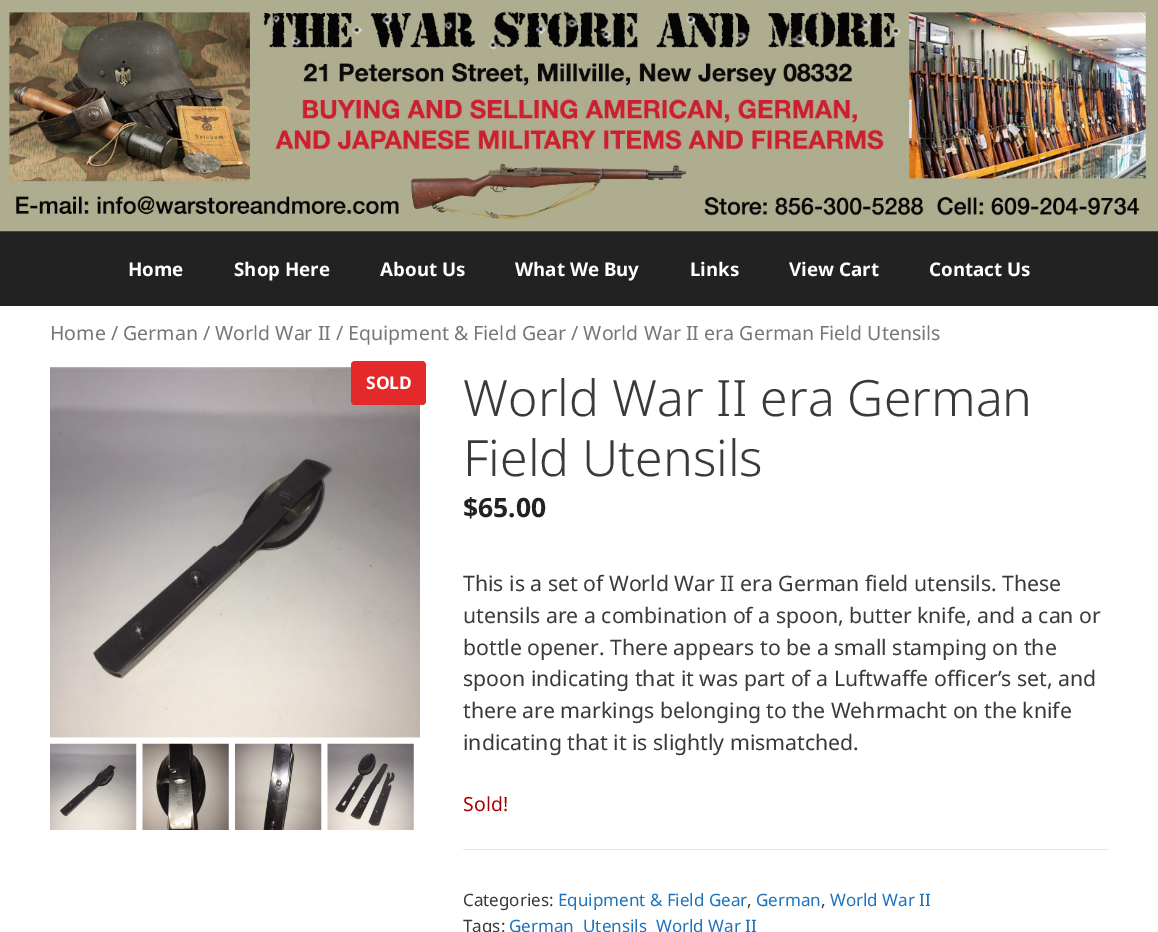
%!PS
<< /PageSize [1158 932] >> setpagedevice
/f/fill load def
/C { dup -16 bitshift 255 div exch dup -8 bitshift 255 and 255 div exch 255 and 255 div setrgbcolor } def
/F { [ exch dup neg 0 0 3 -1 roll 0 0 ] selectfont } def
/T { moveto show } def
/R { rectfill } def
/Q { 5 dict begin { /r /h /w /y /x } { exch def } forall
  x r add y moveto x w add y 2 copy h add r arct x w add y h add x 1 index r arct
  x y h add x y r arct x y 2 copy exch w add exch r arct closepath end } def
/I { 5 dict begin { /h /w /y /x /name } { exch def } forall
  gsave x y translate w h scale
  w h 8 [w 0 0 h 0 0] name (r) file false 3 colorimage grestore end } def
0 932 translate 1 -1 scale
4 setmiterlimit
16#FFFFFF C
0 0 1158 932 R
16#AEAD8F C
0 0 1158 11 R
16#222222 C
0 231 1158 75 R
(1.rgb) 0 11 1158 221 I
/NotoSans-Bold 18.75 F
16#FFFFFF C
(Home) 128 276 T
(Shop Here) 234 276 T
(About Us) 380 276 T
(What We Buy) 515 276 T
(Links) 690 276 T
(View Cart) 789 276 T
(Contact Us) 929 276 T
/NotoSans-Regular 19.55 F
16#767676 C
(Home / German / World War II / Equipment & Field Gear / World War II era German Field Utensils) 50 340 T
(2.rgb) 50 367 370 371 I
16#E32929 C
351 361 75 44 4 Q f
/NotoSans-Bold 17.5 F
16#FFFFFF C
(SOLD) 366 389 T
(3.rgb) 50 743 87 87 I
(4.rgb) 142 743 87 87 I
(5.rgb) 235 743 87 87 I
(6.rgb) 327 743 87 87 I
/NotoSans-Light 50 F
16#3A3A3A C
(World War II era German) 463 416 T
(Field Utensils) 463 476 T
/NotoSans-Bold 26.5 F
16#222222 C
($65.00) 463 517 T
/NotoSans-Regular 21.25 F
16#3A3A3A C
(This is a set of World War II era German field utensils. These) 463 591 T
(utensils are a combination of a spoon, butter knife, and a can or) 463 623 T
(bottle opener. There appears to be a small stamping on the) 463 655 T
(spoon indicating that it was part of a Luftwaffe officer’s set, and) 463 686 T
(there are markings belonging to the Wehrmacht on the knife) 463 718 T
(indicating that it is slightly mismatched.) 463 750 T
/NotoSans-Regular 19.55 F
16#AA0000 C
(Sold!) 463 811 T
16#E6E6E6 C
463 849 646 1 R
/NotoSans-Regular 17 F
16#3A3A3A C
(Categories:) 463 906 T
16#1E73BE C
(Equipment & Field Gear) 558 906 T
16#3A3A3A C
(,) 747 906 T
16#1E73BE C
(German) 756 906 T
16#3A3A3A C
(,) 821 906 T
16#1E73BE C
(World War II) 830 906 T
16#3A3A3A C
(Tags:) 463 932 T
16#1E73BE C
(German) 509 932 T
(Utensils) 583 932 T
(World War II) 656 932 T
showpage
